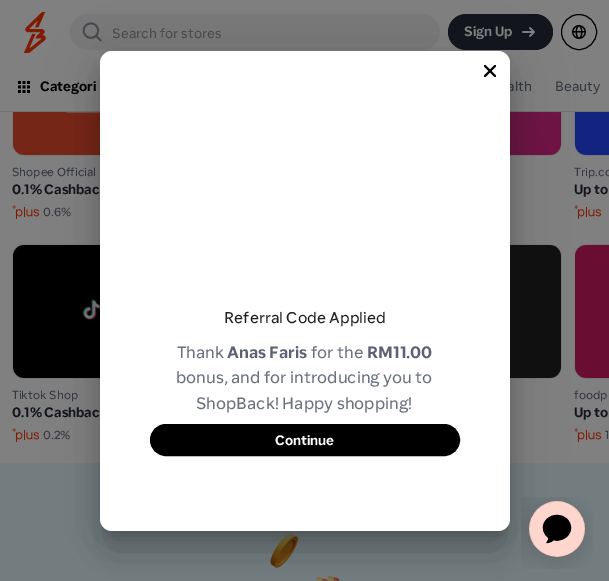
%!PS
<< /PageSize [609 581] /PageUsesTransparency true >> setpagedevice
/m/moveto load def
/l/rlineto load def
/f/fill load def
/s/stroke load def
/q/gsave load def
/Q_/grestore load def
/w/setlinewidth load def
/C { dup -16 bitshift 255 div exch dup -8 bitshift 255 and 255 div exch 255 and 255 div setrgbcolor } def
/F { [ exch dup neg 0 0 3 -1 roll 0 0 ] selectfont } def
/T { moveto show } def
/R { rectfill } def
/A { dup .setfillconstantalpha .setstrokeconstantalpha } def
/O { newpath 0 360 arc closepath } def
/Q { 5 dict begin { /r /h /w /y /x } { exch def } forall
  x r add y moveto x w add y 2 copy h add r arct x w add y h add x 1 index r arct
  x y h add x y r arct x y 2 copy exch w add exch r arct closepath end } def
/S { 12 dict begin { /a /b /q /h /w /y /x } { exch def } forall gsave /was 0 def
  9 -2 -9 { dup b mul 4 div /e exch def 1 sub .425 mul 2.718 exch exp 1 add a .99 .min exch div /now exch def
    1 1 now sub 1 was sub div sub A /was now def
    w h .min e 2 mul add 0 gt { x e sub y e sub w e 2 mul add h e 2 mul add
      q e add b .6 mul add w h .min 2 div e add .min 0 .max Q fill } if } for grestore end } def
/I { 5 dict begin { /h /w /y /x /name } { exch def } forall
  gsave x y translate w h scale
  w h 8 [w 0 0 h 0 0] name (r) file false 3 colorimage grestore end } def
0 .pushpdf14devicefilter
0 581 translate 1 -1 scale
4 setmiterlimit
16#808080 C
0 0 609 581 R
16#787879 C
293.5 20.5 268 135 11.5 Q s
12.5 20.5 268 135 11.5 Q s
574.5 20.5 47 135 11.5 Q s
16#808080 C
12 20 597 44 R
(1.rgb) 24 12 22 41 I
16#787879 C
70 14 370 36 18 Q f
(2.rgb) 82 22 20 20 I
/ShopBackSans-Regular 14 F
16#4C4C4D C
(Search for stores) 112 38 T
16#12151C C
448 14 105 36 18 Q f
/ShopBackSans-Bold 14 F
16#808080 C
(Sign Up) 464 36 T
(3.rgb) 522 27 13 10 I
16#000000 C
579 32 17.5 O s
(4.rgb) 572 25 14 14 I
16#808080 C
12 64 563 47 R
16#6F7072 C
0 111 609 1 R
(5.rgb) 18 81 12 12 I
16#000000 C
(Categori) 40 91 T
/ShopBackSans-Regular 14 F
16#353940 C
(alth) 507 91 T
(Beauty) 555 91 T
(6.rgb) 510 112 51 43 I
(7.rgb) 13 112 87 43 I
/ShopBackSans-Regular 12 F
(Shopee Official) 12 176 T
/ShopBackSans-Bold 14 F
16#12151C C
12 194 m -.1 0 (0.1% Cashbac) ashow
(8.rgb) 12 205 27 14 I
/ShopBackSans-Regular 12 F
16#353940 C
(0.6%) 43 216 T
(9.rgb) 575 112 34 43 I
(Trip.co) 574 176 T
/ShopBackSans-Bold 14 F
16#12151C C
574 194 m -.1 0 (Up to) ashow
(8.rgb) 574 205 27 14 I
16#787879 C
293.5 244.5 268 134 11.5 Q s
(10.rgb) 510 245 51 133 I
12.5 244.5 268 134 11.5 Q s
(11.rgb) 13 245 87 133 I
/ShopBackSans-Regular 12 F
16#353940 C
(Tiktok Shop) 12 399 T
/ShopBackSans-Bold 14 F
16#12151C C
12 417 m -.1 0 (0.1% Cashbac) ashow
(8.rgb) 12 428 27 14 I
/ShopBackSans-Regular 12 F
16#353940 C
(0.2%) 43 439 T
16#787879 C
574.5 244.5 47 134 11.5 Q s
(12.rgb) 575 245 34 133 I
16#353940 C
(foodp) 574 399 T
/ShopBackSans-Bold 14 F
16#12151C C
574 417 m -.1 0 (Up to) ashow
(8.rgb) 574 428 27 14 I
/ShopBackSans-Regular 12 F
16#353940 C
(1) 605 439 T
16#737C7F C
0 463 609 118 R
(13.rgb) 270 533 70 48 I
16#000000 C
92 52 426 496 20 23 .12 S
97 72 416 486 15 19 .14 S
107 69 396 466 5 7.5 .2 S
16#FFFFFF C
100 51 410 480 12 Q f
16#000000 C
2 w
1 setlinecap
485 66 m 10 10 l 485 76 m 10 -10 l s
/ShopBackSans-Regular 16 F
16#212121 C
(Referral Code Applied) 224 323 T
/ShopBackSans-Regular 17 F
16#6A717F C
(Thank) 177 358 T
/ShopBackSans-Bold 17 F
16#5B6274 C
(Anas Faris) 227 358 T
/ShopBackSans-Regular 17 F
16#6A717F C
(for the) 311 358 T
/ShopBackSans-Bold 17 F
16#5B6274 C
(RM11.00) 367 358 T
/ShopBackSans-Regular 17 F
16#6A717F C
(bonus, and for introducing you to) 176 383 T
(ShopBack! Happy shopping!) 196 409 T
16#000000 C
150.5 424.5 309 31 15.5 Q q f Q_
1 w
0 setlinecap
s
/ShopBackSans-Bold 14 F
16#FFFFFF C
(Continue) 275 445 T
(14.rgb) 521 497 72 72 I
.poppdf14devicefilter showpage
